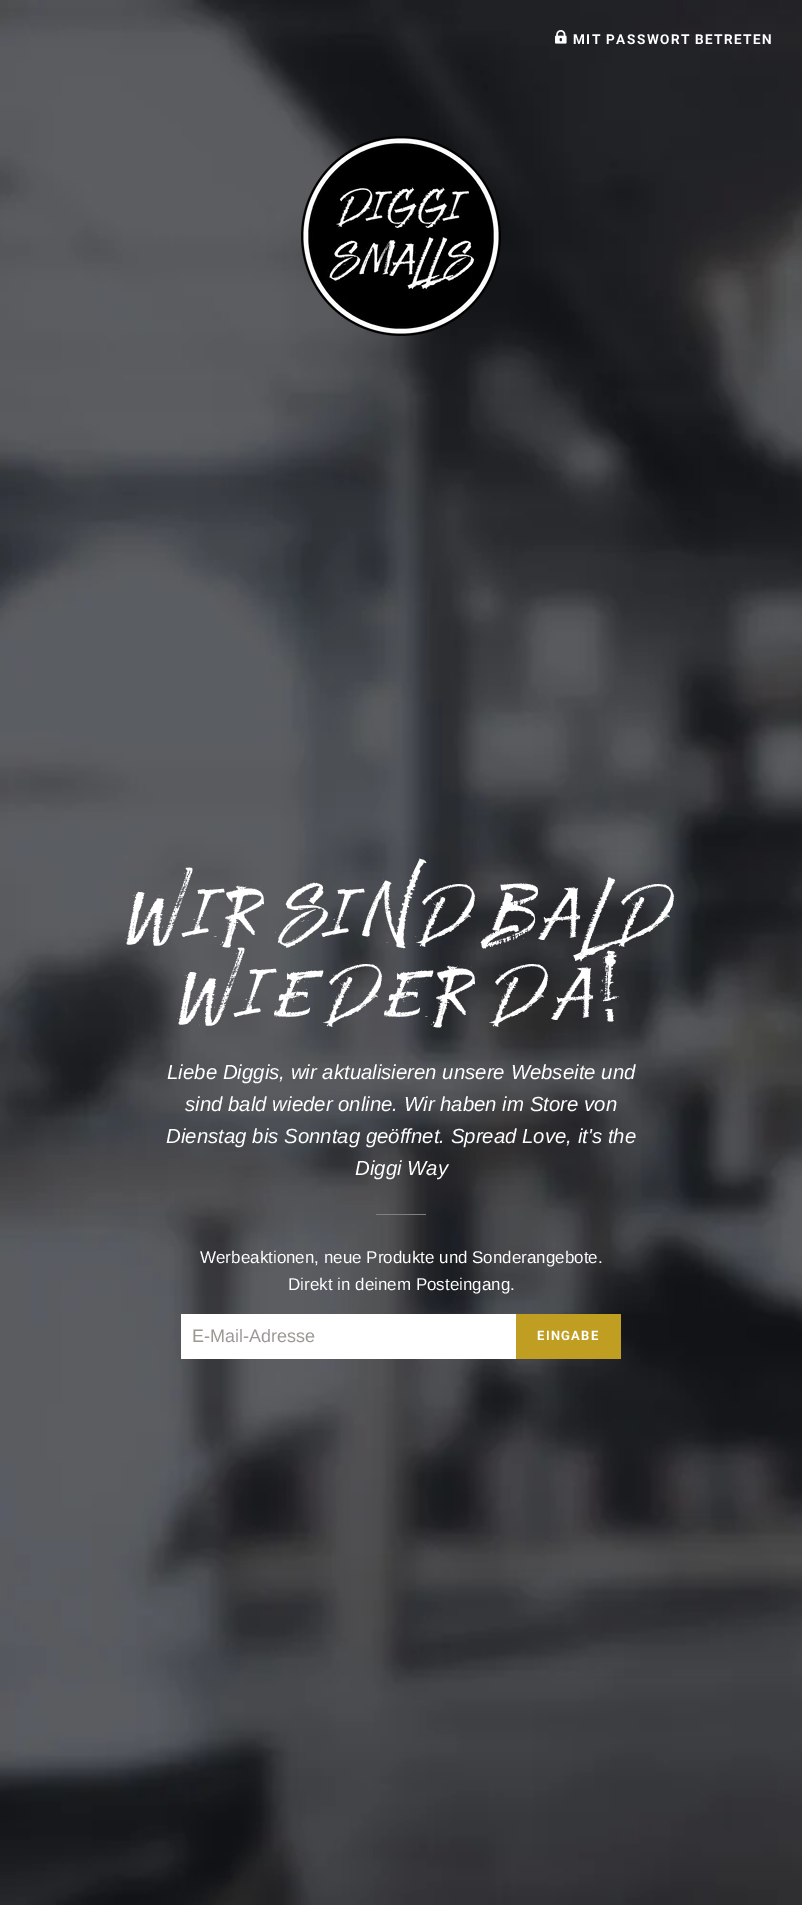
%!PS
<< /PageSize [802 1905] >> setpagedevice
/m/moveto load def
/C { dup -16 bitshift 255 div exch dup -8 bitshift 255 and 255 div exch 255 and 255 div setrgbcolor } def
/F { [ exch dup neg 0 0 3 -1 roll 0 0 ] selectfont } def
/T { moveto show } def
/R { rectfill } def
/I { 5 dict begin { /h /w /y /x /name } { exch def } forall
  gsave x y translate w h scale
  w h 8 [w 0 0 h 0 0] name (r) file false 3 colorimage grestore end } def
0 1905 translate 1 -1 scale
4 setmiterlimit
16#FFFFFF C
0 0 802 1905 R
(1.rgb) 0 0 802 1905 I
(2.rgb) 555 30 12 14 I
/Roboto-Bold 13.6 F
573 44 m 1.4 0 (MIT PASSWORT BETRETEN) ashow
(3.rgb) 301 136 200 200 I
/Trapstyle-Regular 64 F
(Wir sind bald) 125 920 T
(wieder da!) 177 1000 T
/LiberationSans-Italic 20.4 F
(Liebe Diggis, wir aktualisieren unsere Webseite und) 167 1079 T
(sind bald wieder online. Wir haben im Store von) 185 1111 T
(Dienstag bis Sonntag geöffnet. Spread Love, it's the) 166 1143 T
(Diggi Way) 355 1175 T
16#808080 C
376 1214 50 1 R
/LiberationSans-Regular 17 F
16#FFFFFF C
(Werbeaktionen, neue Produkte und Sonderangebote.) 200 1263 T
(Direkt in deinem Posteingang.) 288 1290 T
181 1314 335 45 R
/LiberationSans-Regular 18 F
16#9B9994 C
(E-Mail-Adresse) 192 1342 T
16#C09E21 C
516 1314 105 45 R
/Roboto-Bold 13 F
16#FFFFFF C
537 1340 m 1.25 0 (EINGABE) ashow
showpage
